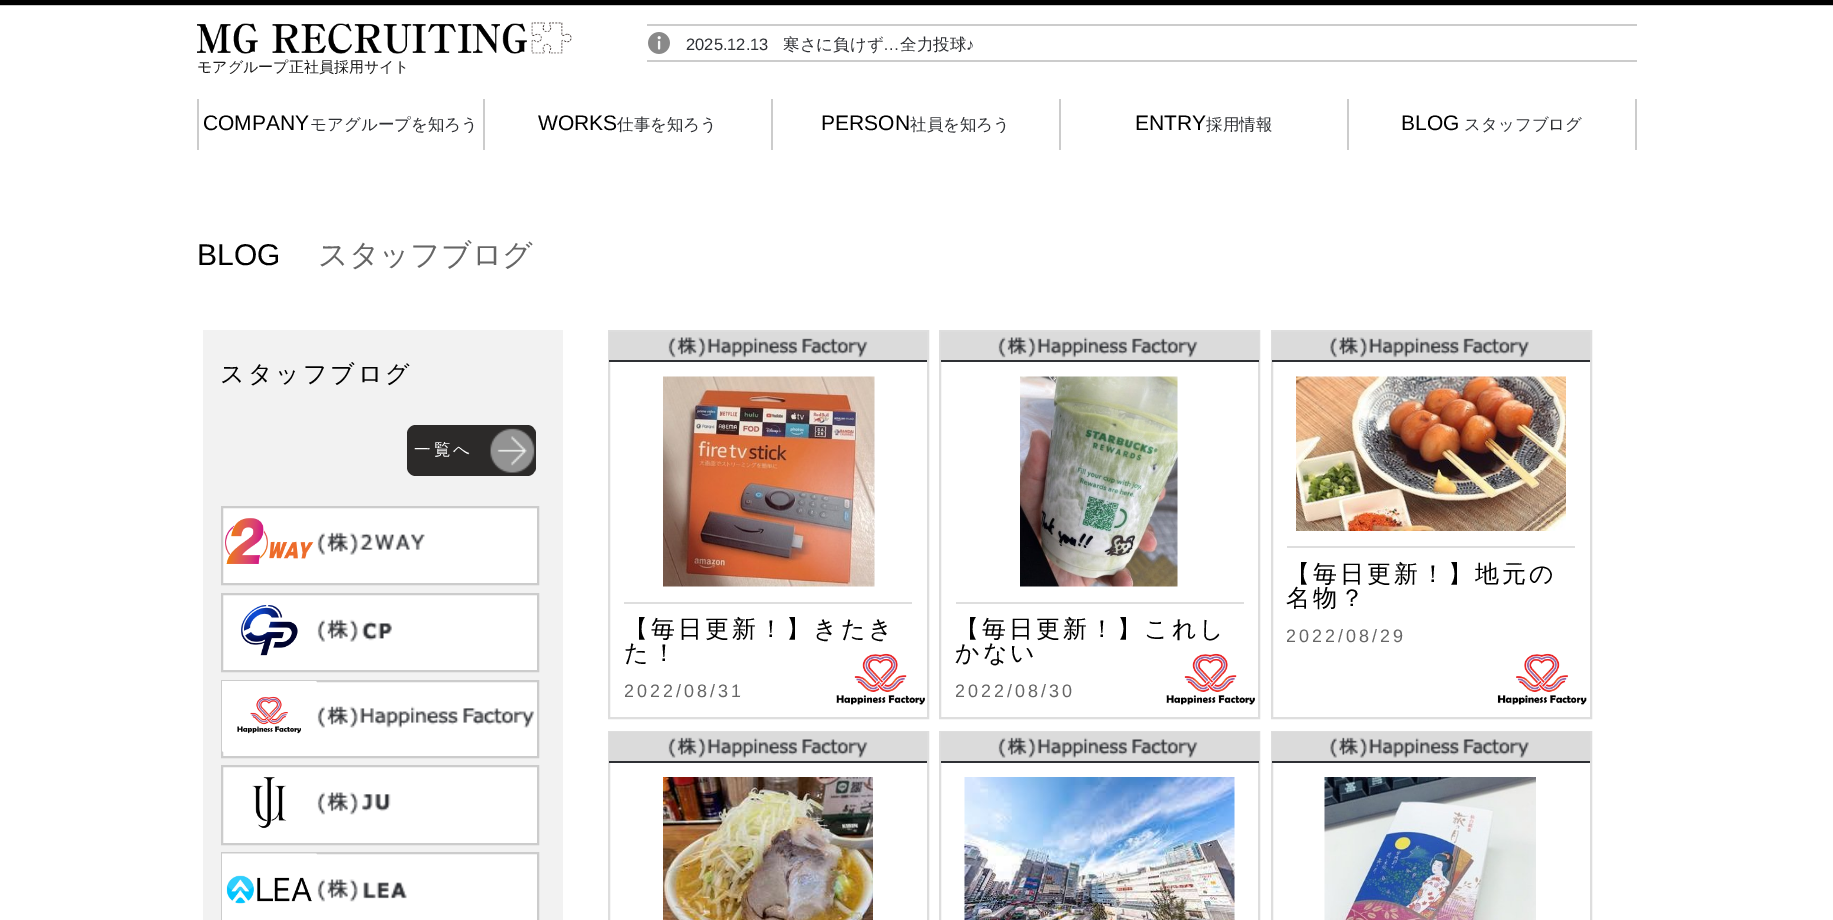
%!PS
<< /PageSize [1833 920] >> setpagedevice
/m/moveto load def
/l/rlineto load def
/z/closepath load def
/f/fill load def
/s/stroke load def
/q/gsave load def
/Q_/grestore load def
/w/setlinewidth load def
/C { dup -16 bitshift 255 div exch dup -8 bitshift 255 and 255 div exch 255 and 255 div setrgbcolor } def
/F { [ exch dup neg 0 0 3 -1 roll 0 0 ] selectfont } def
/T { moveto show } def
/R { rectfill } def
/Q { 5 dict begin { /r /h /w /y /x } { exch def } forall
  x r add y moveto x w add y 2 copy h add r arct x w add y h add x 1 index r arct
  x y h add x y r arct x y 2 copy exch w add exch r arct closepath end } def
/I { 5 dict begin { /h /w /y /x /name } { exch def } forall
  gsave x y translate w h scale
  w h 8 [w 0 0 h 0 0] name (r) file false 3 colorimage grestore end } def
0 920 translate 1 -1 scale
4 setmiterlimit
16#FFFFFF C
0 0 1833 920 R
16#000000 C
0 0 1833 5 R
16#CCCCCC C
0 5 1833 1 R
647 24 990 2 R
647 60 990 2 R
(1.rgb) 648 32 22 22 I
/LiberationSans-Regular 16.5 F
16#2E3034 C
(2025.12.13) 686 50 T
/WenQuanYiZenHei-Medium 16.5 F
(寒さに負けず) 783 50 T
/LiberationSans-Regular 16.5 F
(…) 883 50 T
/WenQuanYiZenHei-Medium 16.5 F
(全力投球) 900 50 T
/LiberationSans-Regular 16.5 F
(♪) 966 50 T
(2.rgb) 197 22 375 32 I
/WenQuanYiZenHei-Medium 15 F
16#1A1A1A C
(モアグループ正社員採用サイト) 197 72 T
16#CCCCCC C
483 99 2 51 R
197 99 2 51 R
/LiberationSans-Regular 21 F
16#000000 C
(COMPANY) 203 130 T
/WenQuanYiZenHei-Medium 16.5 F
16#2E3034 C
(モアグループを知ろう) 310 130 T
16#CCCCCC C
771 99 2 51 R
/LiberationSans-Regular 21 F
16#000000 C
(WORKS) 538 130 T
/WenQuanYiZenHei-Medium 16.5 F
16#2E3034 C
(仕事を知ろう) 617 130 T
16#CCCCCC C
1059 99 2 51 R
/LiberationSans-Regular 21 F
16#000000 C
(PERSON) 821 130 T
/WenQuanYiZenHei-Medium 16.5 F
16#2E3034 C
(社員を知ろう) 910 130 T
16#CCCCCC C
1347 99 2 51 R
/LiberationSans-Regular 21 F
16#000000 C
(ENTRY) 1135 130 T
/WenQuanYiZenHei-Medium 16.5 F
16#2E3034 C
(採用情報) 1206 130 T
16#CCCCCC C
1635 99 2 51 R
/LiberationSans-Regular 21 F
16#000000 C
(BLOG) 1401 130 T
/WenQuanYiZenHei-Medium 16.5 F
16#2E3034 C
(スタッフブログ) 1464 130 T
/LiberationSans-Regular 30 F
16#000000 C
(BLOG) 197 265 T
/WenQuanYiZenHei-Medium 30 F
16#666666 C
(スタッフブログ) 318 265 T
16#F2F2F2 C
203 330 360 590 R
/WenQuanYiZenHei-Medium 24 F
16#000000 C
220 382 m 3 0 (スタッフブログ) ashow
16#2C2A29 C
407 425 129 51 9 Q f
(3.rgb) 490 428 45 45 I
/WenQuanYiZenHei-Medium 16.5 F
16#FFFFFF C
414 455 m 3 0 (一覧へ) ashow
222 507 m 316 0 l 0 77 l -316 0 l z q f Q_
16#CCCCCC C
2 w
s
(4.rgb) 224 518 90 46 I
(5.rgb) 317 532 108 23 I
16#FFFFFF C
222 594 m 316 0 l 0 77 l -316 0 l z q f Q_
16#CCCCCC C
s
(6.rgb) 241 605 57 51 I
(7.rgb) 317 619 75 23 I
16#FFFFFF C
222 681 m 316 0 l 0 76 l -316 0 l z q f Q_
16#CCCCCC C
s
(8.rgb) 222 681 95 71 I
(9.rgb) 317 706 218 22 I
16#FFFFFF C
222 766 m 316 0 l 0 78 l -316 0 l z q f Q_
16#CCCCCC C
s
(10.rgb) 252 777 35 52 I
(11.rgb) 317 792 74 23 I
16#FFFFFF C
316 854 221 66 R
16#CCCCCC C
222 853 316 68 rectstroke
(12.rgb) 222 853 95 67 I
(13.rgb) 317 879 90 23 I
(14.rgb) 1497 653 90 52 I
16#DEDEDE C
1272 331 319 387 rectstroke
16#DBDBDB C
1272 332 318 28 R
16#2E3034 C
1272 360 318 2 R
(15.rgb) 1330 337 199 21 I
(16.rgb) 1296 376 270 155 I
16#DEDEDE C
1287 546 288 2 R
/WenQuanYiZenHei-Medium 24 F
16#000000 C
1286 582 m 3 0 (【毎日更新！】地元の) ashow
1286 606 m 3 0 (名物？) ashow
/LiberationSans-Regular 18 F
16#666666 C
1286 642 m 3 0 (2022/08/29) ashow
(17.rgb) 836 653 89 52 I
16#DEDEDE C
609 331 319 387 rectstroke
16#DBDBDB C
609 332 318 28 R
16#2E3034 C
609 360 318 2 R
(18.rgb) 668 337 200 21 I
(19.rgb) 663 376 212 211 I
16#DEDEDE C
624 602 288 2 R
/WenQuanYiZenHei-Medium 24 F
16#000000 C
624 637 m 3 0 (【毎日更新！】きたき) ashow
624 661 m 3 0 (た！) ashow
/LiberationSans-Regular 18 F
16#666666 C
624 697 m 3 0 (2022/08/31) ashow
(20.rgb) 1166 653 89 52 I
16#DEDEDE C
940 331 319 387 rectstroke
16#DBDBDB C
941 332 318 28 R
16#2E3034 C
941 360 318 2 R
(21.rgb) 998 337 200 21 I
(22.rgb) 1020 376 158 211 I
16#DEDEDE C
956 602 288 2 R
/WenQuanYiZenHei-Medium 24 F
16#000000 C
955 637 m 3 0 (【毎日更新！】これし) ashow
955 661 m 3 0 (かない) ashow
/LiberationSans-Regular 18 F
16#666666 C
955 697 m 3 0 (2022/08/30) ashow
16#DEDEDE C
609 732 319 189 rectstroke
16#DBDBDB C
609 732 318 29 R
16#2E3034 C
609 761 318 2 R
(23.rgb) 668 737 200 21 I
(24.rgb) 663 777 210 143 I
16#DEDEDE C
940 732 319 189 rectstroke
16#DBDBDB C
941 732 318 29 R
16#2E3034 C
941 761 318 2 R
(25.rgb) 998 737 200 21 I
(26.rgb) 964 777 271 143 I
16#DEDEDE C
1272 732 319 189 rectstroke
16#DBDBDB C
1272 732 318 29 R
16#2E3034 C
1272 761 318 2 R
(27.rgb) 1330 737 199 21 I
(28.rgb) 1324 777 212 143 I
showpage
